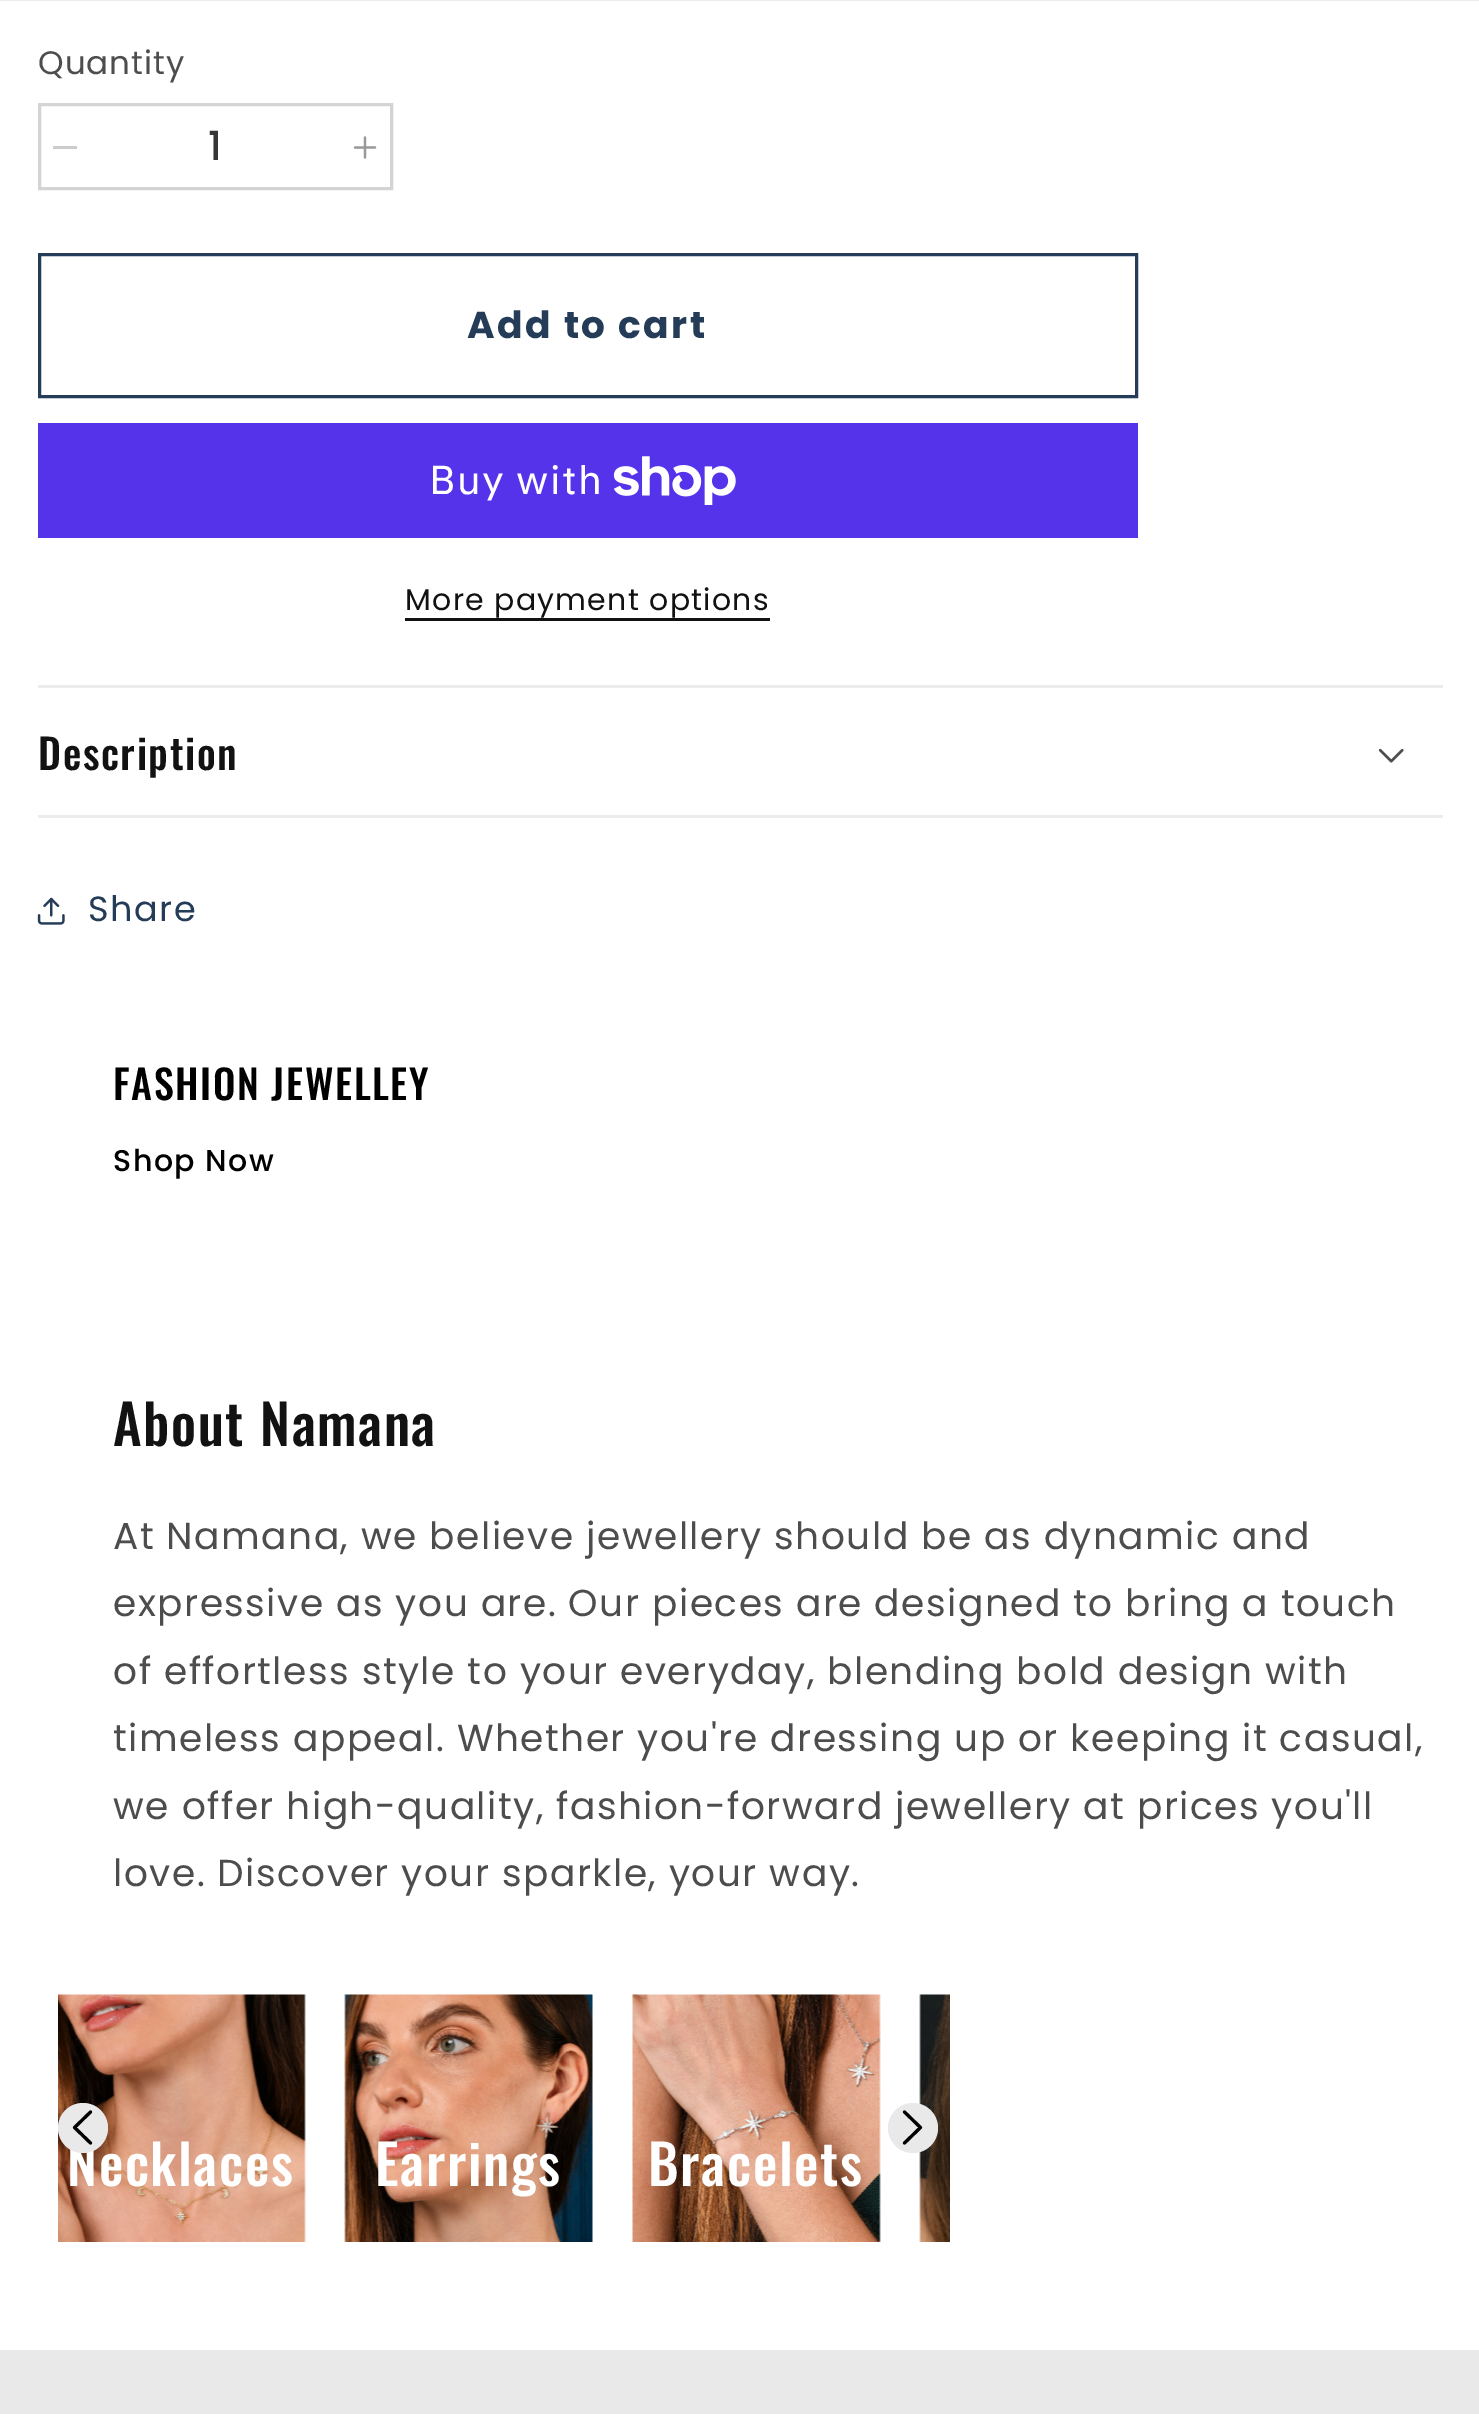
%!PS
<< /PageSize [1479 2414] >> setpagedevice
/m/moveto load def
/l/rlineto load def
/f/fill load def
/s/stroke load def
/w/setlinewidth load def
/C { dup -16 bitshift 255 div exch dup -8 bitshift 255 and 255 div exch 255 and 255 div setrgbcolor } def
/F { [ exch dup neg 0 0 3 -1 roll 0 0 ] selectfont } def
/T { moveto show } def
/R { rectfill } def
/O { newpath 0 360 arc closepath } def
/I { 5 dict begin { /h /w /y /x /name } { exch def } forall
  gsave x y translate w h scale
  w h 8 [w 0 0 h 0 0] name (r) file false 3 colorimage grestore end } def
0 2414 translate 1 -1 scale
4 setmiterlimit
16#FFFFFF C
0 0 1479 2414 R
16#ECECEC C
0 0 1479 1 R
/Poppins-Regular 32.5 F
16#4D4D4D C
38 74 m 1 0 (Quantity) ashow
16#CCCCCC C
53 146 24 3 R
(1.rgb) 353 136 24 23 I
16#D4D4D4 C
3 w
39.5 104.5 352 84 rectstroke
/Poppins-Medium 40 F
16#363636 C
(1) 208 160 T
16#253C59 C
39.5 254.5 1097 142 rectstroke
/Poppins-Bold 37.5 F
467 338 m 2.5 0 (Add to cart) ashow
16#5433EB C
38 423 1100 115 R
/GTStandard-Regular 40 F
16#FFFFFF C
429 494 m 1.5 0 (Buy with) ashow
(2.rgb) 613 456 123 49 I
/Poppins-Regular 30 F
16#121212 C
405 610 m 1.25 0 (More payment options) ashow
405 618 365 3 R
16#ECECEC C
38 685 1405 3 R
38 815 1405 3 R
/Oswald-Medium 41.25 F
16#121212 C
38 770 m 1.6 0 (Description) ashow
(3.rgb) 1378 748 26 15 I
(4.rgb) 37 897 28 28 I
/Poppins-Regular 35 F
16#253C59 C
88 921 m 1.5 0 (Share) ashow
/Oswald-Medium 40 F
16#000000 C
113 1100 m 1.6 0 (FASHION JEWELLEY) ashow
/Poppins-Medium 30 F
113 1171 m 1.5 0 (Shop Now) ashow
/Oswald-Medium 55 F
16#121212 C
113 1446 m 1.6 0 (About Namana) ashow
/Poppins-Regular 37.5 F
16#4D4D4D C
113 1549 m 1.5 0 (At Namana, we believe jewellery should be as dynamic and) ashow
113 1616 m 1.5 0 (expressive as you are. Our pieces are designed to bring a touch) ashow
113 1684 m 1.5 0 (of effortless style to your everyday, blending bold design with) ashow
113 1751 m 1.5 0 (timeless appeal. Whether you're dressing up or keeping it casual,) ashow
113 1819 m 1.5 0 (we offer high-quality, fashion-forward jewellery at prices you'll) ashow
113 1886 m 1.5 0 (love. Discover your sparkle, your way.) ashow
(5.rgb) 58 1994 248 248 I
/Oswald-Medium 55 F
16#FFFFFF C
67 2186 m 1.6 0 (Necklaces) ashow
16#E9E9E9 C
83 2128 25 O f
16#000000 C
3.1 w
1 setlinecap
1 setlinejoin
90.5 2143 m -16 -15.5 l 16 -15.5 l s
(8.rgb) 919 1994 31 248 I
16#E9E9E9 C
913 2128 25 O f
16#000000 C
904.5 2112 m 16 15.5 l -16 15.5 l s
(6.rgb) 344 1994 249 248 I
16#FFFFFF C
375 2186 m 1.6 0 (Earrings) ashow
(7.rgb) 632 1994 249 248 I
648 2186 m 1.6 0 (Bracelets) ashow
16#E9E9E9 C
0 2350 1479 64 R
showpage
